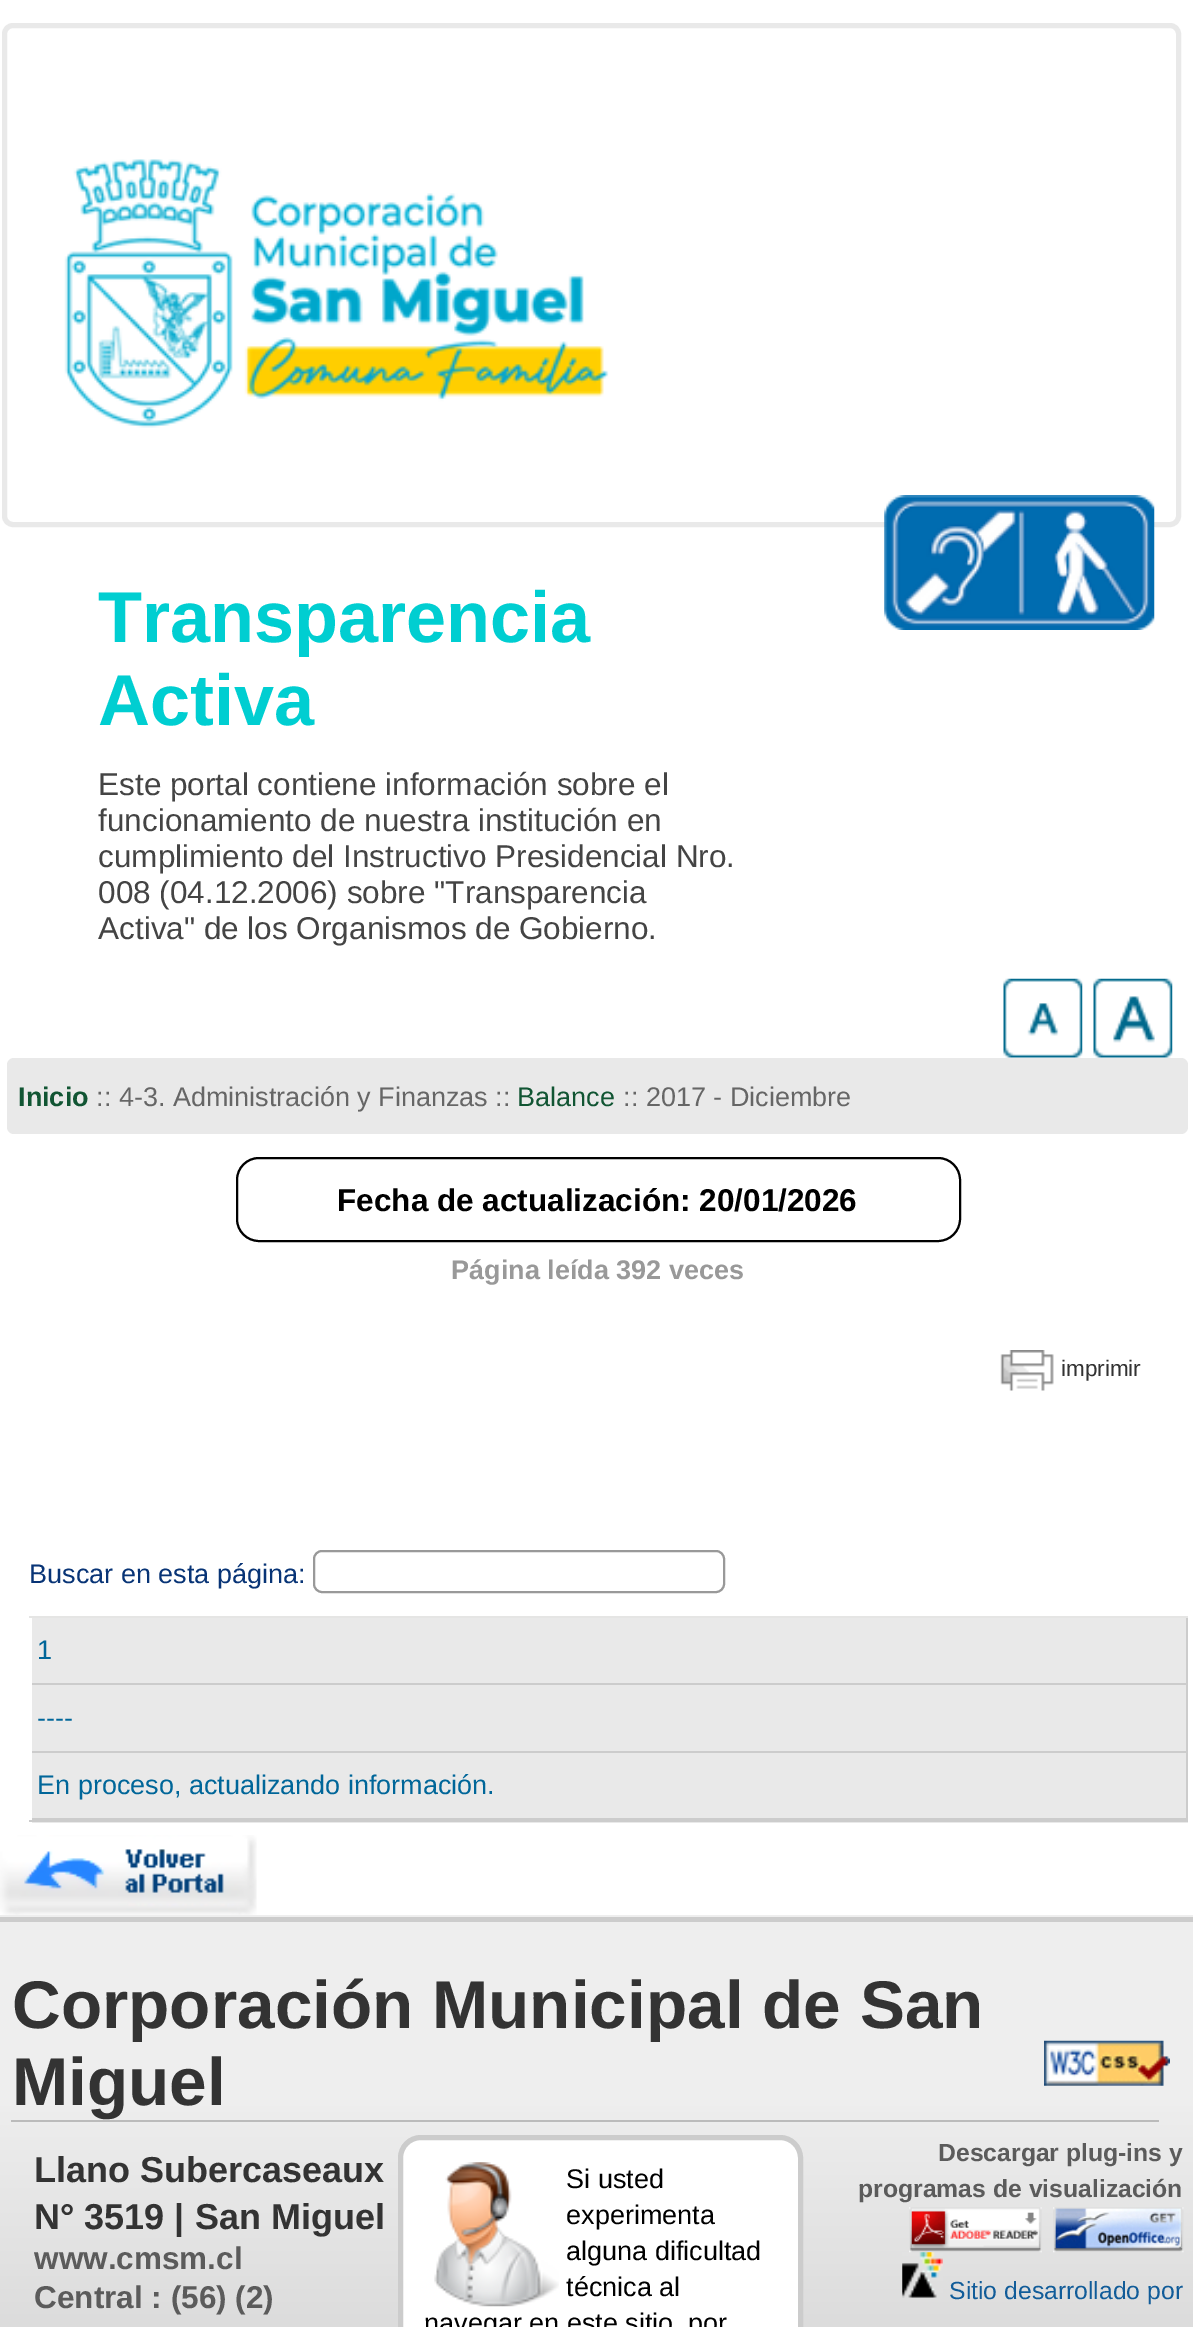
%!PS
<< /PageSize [1193 2327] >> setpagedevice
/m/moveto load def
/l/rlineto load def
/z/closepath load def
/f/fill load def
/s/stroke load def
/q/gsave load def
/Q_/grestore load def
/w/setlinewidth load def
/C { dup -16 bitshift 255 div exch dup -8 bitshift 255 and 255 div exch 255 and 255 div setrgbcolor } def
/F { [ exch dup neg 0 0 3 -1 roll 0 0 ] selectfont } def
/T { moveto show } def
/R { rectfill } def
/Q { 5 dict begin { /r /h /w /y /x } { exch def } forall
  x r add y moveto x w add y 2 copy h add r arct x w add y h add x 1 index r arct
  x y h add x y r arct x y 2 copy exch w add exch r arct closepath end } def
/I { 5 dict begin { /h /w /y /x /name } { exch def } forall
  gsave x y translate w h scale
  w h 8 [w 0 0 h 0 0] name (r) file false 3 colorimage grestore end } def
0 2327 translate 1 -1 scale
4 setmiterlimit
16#FFFFFF C
0 0 1193 2327 R
16#E9E9E9 C
5 w
4.5 25.5 1174 499 8.5 Q s
(1.rgb) 64 159 545 269 I
(2.rgb) 884 495 271 135 I
/LiberationSans-Bold 72 F
16#00CED1 C
(Transparencia) 98 642 T
(Activa) 98 725 T
/LiberationSans-Regular 31.5 F
16#444444 C
(Este portal contiene información sobre el) 98 795 T
(funcionamiento de nuestra institución en) 98 831 T
(cumplimiento del Instructivo Presidencial Nro.) 98 867 T
(008 \(04.12.2006\) sobre "Transparencia) 98 903 T
(Activa" de los Organismos de Gobierno.) 98 939 T
(3.rgb) 1003 978 80 80 I
(4.rgb) 1093 978 80 80 I
16#E9E9E9 C
7 1058 1181 76 7 Q f
/LiberationSans-Bold 27 F
16#115533 C
(Inicio) 18 1106 T
/LiberationSans-Regular 27 F
16#666666 C
(:: 4-3. Administración y Finanzas ::) 96 1106 T
16#115533 C
(Balance) 517 1106 T
16#666666 C
(:: 2017 - Diciembre) 623 1106 T
16#000000 C
2 w
237 1158 723 83 22 Q s
/LiberationSans-Bold 31.5 F
(Fecha de actualización: 20/01/2026) 337 1211 T
/LiberationSans-Bold 27 F
16#999999 C
(Página leída 392 veces) 451 1279 T
(5.rgb) 1000 1350 54 41 I
/LiberationSans-Regular 22.5 F
16#333333 C
(imprimir) 1061 1376 T
/LiberationSans-Regular 27 F
16#083476 C
(Buscar en esta página:) 29 1583 T
16#999999 C
314 1551 410 41 8 Q s
16#E5E5E4 C
29 1616 1159 2 R
16#E9E9E9 C
32 1618 1156 205 R
16#CCCCCC C
29 1820 1159 2 R
1186 1618 2 202 R
32 1683 1156 2 R
16#006699 C
(1) 37 1659 T
16#CCCCCC C
32 1751 1156 2 R
16#006699 C
(----) 37 1727 T
16#CCCCCC C
32 1818 1156 2 R
16#006699 C
(En proceso, actualizando información.) 37 1794 T
(6.rgb) 0 1835 257 80 I
16#EEEEEE C
0 1915 1193 2 R
q 0 1917 m 1193 0 l 0 5 l -1193 0 l z clip newpath
<< /ShadingType 2 /ColorSpace /DeviceRGB /Coords [597 1321 597 1922] /Extend [true true] /Function << /FunctionType 3 /Domain [0 1] /Functions [<< /FunctionType 2 /Domain [0 1] /C0 [.933 .933 .933] /C1 [.933 .933 .933] /N 1 >> << /FunctionType 2 /Domain [0 1] /C0 [.933 .933 .933] /C1 [.8 .8 .8] /N 1 >>] /Bounds [.3] /Encode [0 1 0 1] >> >> shfill Q_
q 0 1922 m 1193 0 l 0 405 l -1193 0 l z clip newpath
<< /ShadingType 2 /ColorSpace /DeviceRGB /Coords [597 1922 597 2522] /Extend [true true] /Function << /FunctionType 3 /Domain [0 1] /Functions [<< /FunctionType 2 /Domain [0 1] /C0 [.933 .933 .933] /C1 [.933 .933 .933] /N 1 >> << /FunctionType 2 /Domain [0 1] /C0 [.933 .933 .933] /C1 [.8 .8 .8] /N 1 >>] /Bounds [.3] /Encode [0 1 0 1] >> >> shfill Q_
16#BBBBBB C
11 2120 1148 2 R
/LiberationSans-Bold 67.5 F
16#333333 C
(Corporación Municipal de San) 12 2028 T
(Miguel) 12 2105 T
(7.rgb) 1044 2040 126 46 I
/LiberationSans-Bold 36 F
(Llano Subercaseaux) 34 2182 T
(N° 3519 | San Miguel) 34 2229 T
/LiberationSans-Bold 31.5 F
16#5B5B5B C
(www.cmsm.cl) 34 2269 T
(Central : \(56\) \(2\)) 34 2308 T
16#FFFFFF C
400.5 2137.5 400 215 20.5 Q q f Q_
16#CCCCCC C
5 w
s
(8.rgb) 434 2162 125 145 I
/LiberationSans-Regular 27 F
16#000000 C
(Si usted) 566 2188 T
(experimenta) 566 2224 T
(alguna dificultad) 566 2260 T
(técnica al) 566 2296 T
(navegar en este sitio, por) 424 2332 T
/LiberationSans-Bold 24.75 F
16#5B5B5B C
(Descargar plug-ins y) 938 2161 T
(programas de visualización) 858 2197 T
(9.rgb) 909 2207 133 46 I
(10.rgb) 1053 2207 131 46 I
(11.rgb) 902 2252 41 46 I
/LiberationSans-Regular 24.75 F
16#115C99 C
(Sitio desarrollado por) 949 2299 T
showpage
